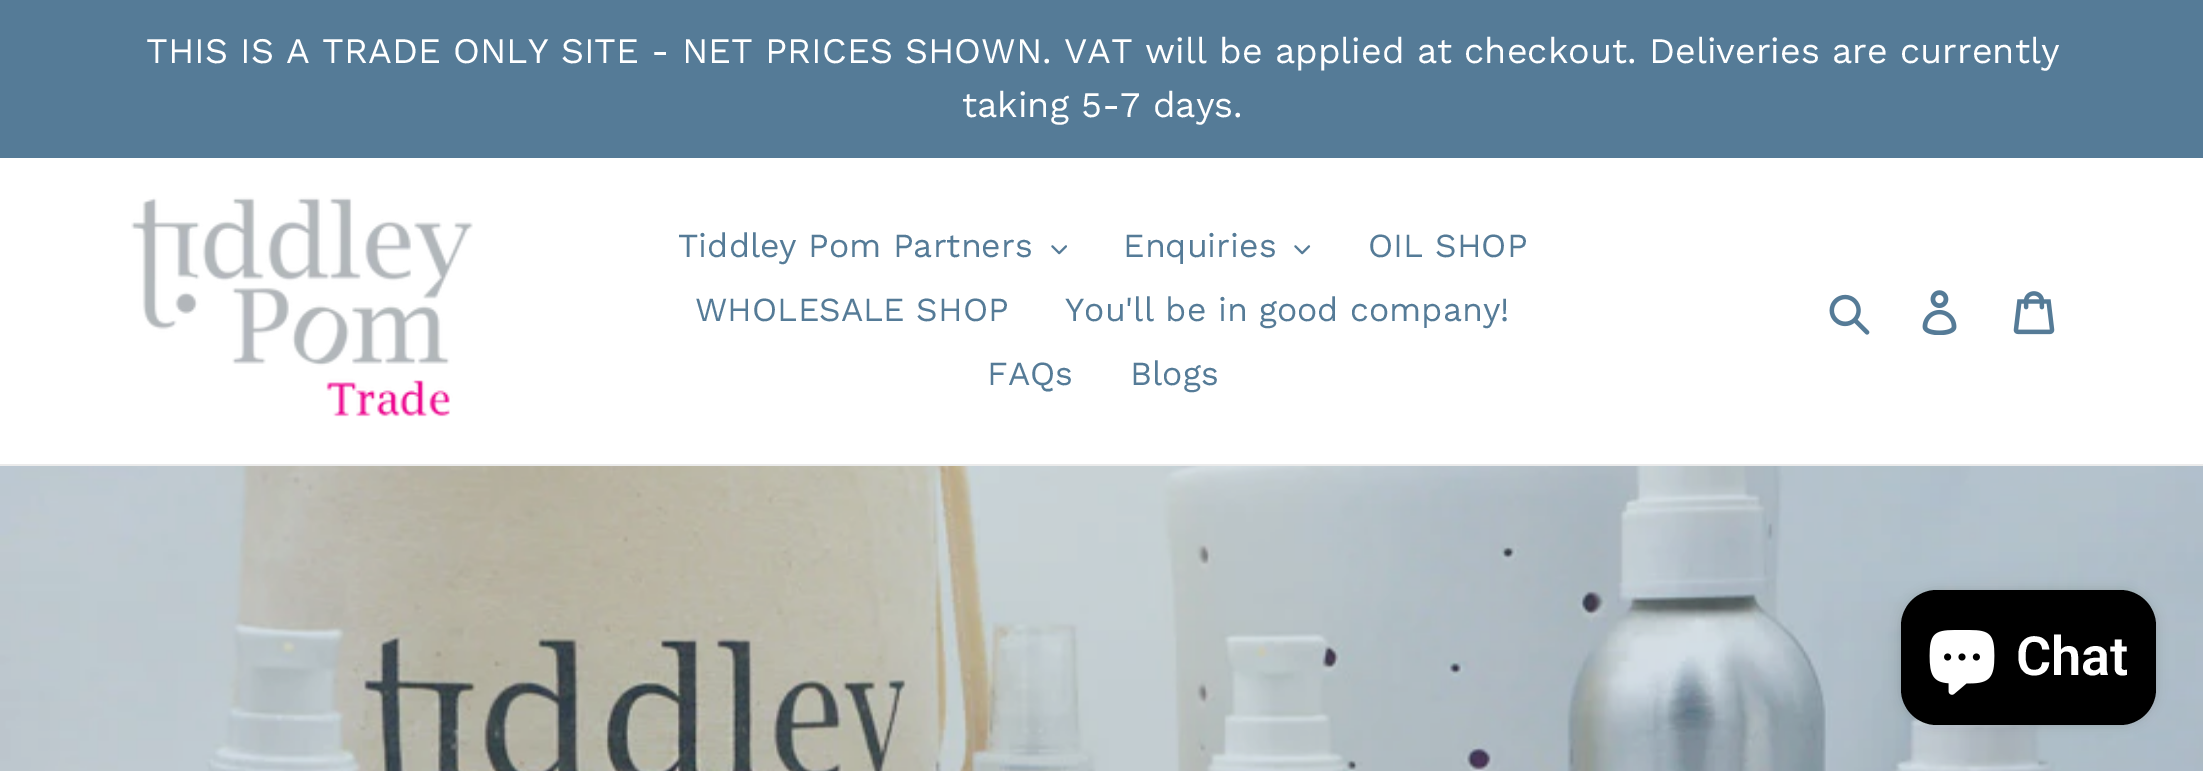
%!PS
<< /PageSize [2203 771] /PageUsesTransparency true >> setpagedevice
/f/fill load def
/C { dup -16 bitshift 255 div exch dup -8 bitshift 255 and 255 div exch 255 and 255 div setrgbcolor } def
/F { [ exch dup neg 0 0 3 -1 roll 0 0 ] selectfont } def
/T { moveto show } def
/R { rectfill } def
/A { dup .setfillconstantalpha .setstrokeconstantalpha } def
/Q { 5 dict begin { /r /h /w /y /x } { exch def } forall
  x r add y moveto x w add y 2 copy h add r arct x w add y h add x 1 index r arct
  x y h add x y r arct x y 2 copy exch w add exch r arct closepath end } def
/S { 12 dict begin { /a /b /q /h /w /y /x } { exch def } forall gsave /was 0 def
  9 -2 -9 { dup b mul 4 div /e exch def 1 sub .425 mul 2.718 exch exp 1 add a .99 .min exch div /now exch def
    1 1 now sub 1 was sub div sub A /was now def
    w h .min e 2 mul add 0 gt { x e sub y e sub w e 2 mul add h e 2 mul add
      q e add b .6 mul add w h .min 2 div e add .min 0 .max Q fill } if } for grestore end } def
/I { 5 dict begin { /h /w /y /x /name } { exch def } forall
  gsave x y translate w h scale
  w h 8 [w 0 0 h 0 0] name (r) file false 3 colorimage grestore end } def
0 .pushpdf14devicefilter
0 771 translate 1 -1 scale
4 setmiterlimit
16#FFFFFF C
0 0 2203 771 R
16#557B97 C
0 0 2203 158 R
/WorkSans-Regular 36 F
16#FFFFFF C
(THIS IS A TRADE ONLY SITE - NET PRICES SHOWN. VAT will be applied at checkout. Deliveries are currently) 146 63 T
(taking 5-7 days.) 962 117 T
16#EBEBEB C
0 464 2203 2 R
(1.rgb) 131 197 342 220 I
/WorkSans-Regular 33.75 F
16#557B97 C
(Tiddley Pom Partners) 678 257 T
(2.rgb) 1051 245 16 10 I
(Enquiries) 1123 257 T
(3.rgb) 1294 245 17 10 I
(OIL SHOP) 1368 257 T
(WHOLESALE SHOP) 695 321 T
(You'll be in good company!) 1065 321 T
(FAQs) 987 385 T
(Blogs) 1130 385 T
(4.rgb) 1829 294 41 41 I
(5.rgb) 1922 290 35 45 I
(6.rgb) 2013 291 42 44 I
(7.rgb) 0 466 2203 305 I
16#000000 C
1901 590 255 135 36 5.5 .15 S
1901 590 255 135 36 Q f
(8.rgb) 1929 630 66 65 I
/Roboto-SemiBold 54 F
16#FFFFFF C
(Chat) 2016 675 T
.poppdf14devicefilter showpage
